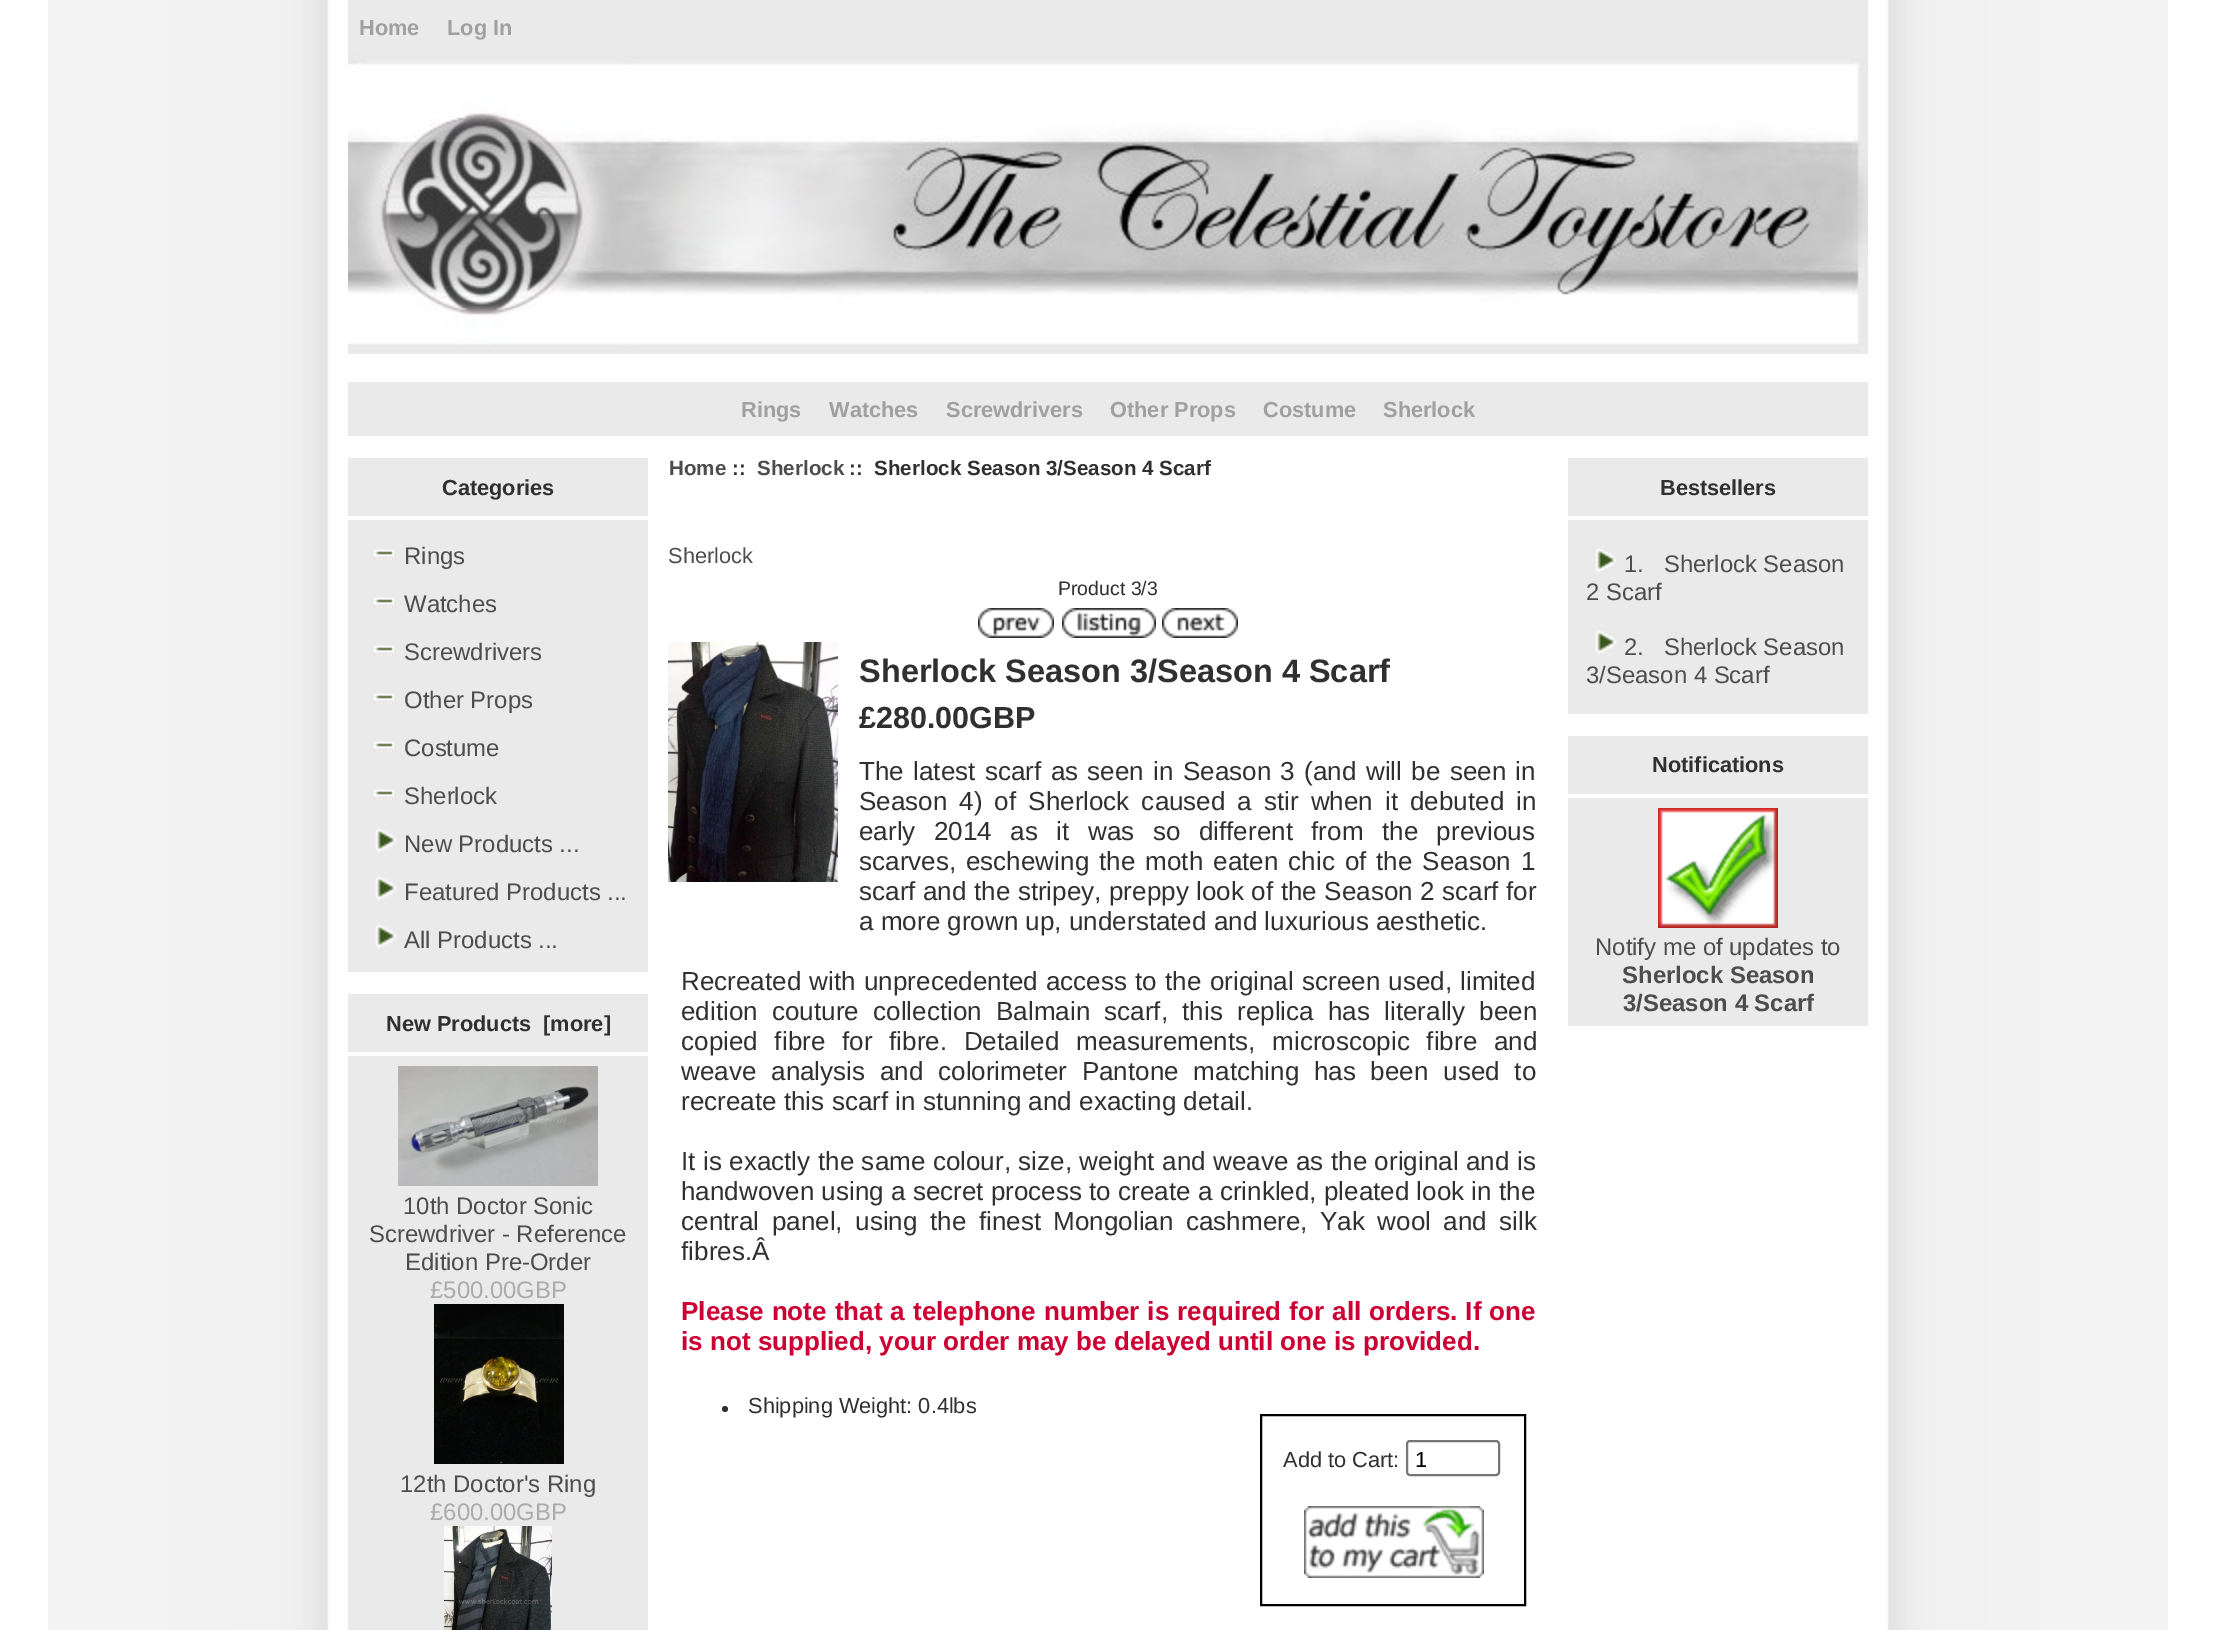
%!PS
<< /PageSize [2215 1630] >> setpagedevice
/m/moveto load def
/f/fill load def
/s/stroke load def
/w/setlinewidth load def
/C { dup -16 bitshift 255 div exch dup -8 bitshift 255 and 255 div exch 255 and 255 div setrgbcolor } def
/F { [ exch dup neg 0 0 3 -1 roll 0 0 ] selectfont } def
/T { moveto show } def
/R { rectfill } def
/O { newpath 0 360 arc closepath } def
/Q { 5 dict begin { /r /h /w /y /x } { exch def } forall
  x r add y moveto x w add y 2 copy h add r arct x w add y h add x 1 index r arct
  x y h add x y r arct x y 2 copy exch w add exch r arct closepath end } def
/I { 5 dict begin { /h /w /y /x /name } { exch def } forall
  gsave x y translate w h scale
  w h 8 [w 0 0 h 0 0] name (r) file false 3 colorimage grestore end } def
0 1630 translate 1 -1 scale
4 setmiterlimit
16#FFFFFF C
0 0 2215 1630 R
(1.rgb) 48 0 2120 1630 I
16#EAEAEA C
348 0 1520 54 R
/LiberationSans-Bold 21.75 F
16#A0A0A0 C
(Home) 359 35 T
(Log In) 447 35 T
(2.rgb) 348 54 1520 300 I
16#EAEAEA C
348 382 1520 54 R
16#A0A0A0 C
(Rings) 741 417 T
(Watches) 829 417 T
(Screwdrivers) 946 417 T
(Other Props) 1110 417 T
(Costume) 1263 417 T
(Sherlock) 1383 417 T
16#EAEAEA C
348 458 300 58 R
16#303030 C
(Categories) 442 495 T
16#EAEAEA C
348 520 300 452 R
(3.rgb) 373 549 22 8 I
/LiberationSans-Regular 23.9 F
16#4D4D4D C
(Rings) 404 564 T
(3.rgb) 373 597 22 8 I
(Watches) 404 612 T
(3.rgb) 373 645 22 8 I
(Screwdrivers) 404 660 T
(3.rgb) 373 693 22 8 I
(Other Props) 404 708 T
(3.rgb) 373 741 22 8 I
(Costume) 404 756 T
(3.rgb) 373 789 22 8 I
(Sherlock) 404 804 T
(4.rgb) 375 828 22 24 I
(New Products ...) 404 852 T
(4.rgb) 375 876 22 24 I
(Featured Products ...) 404 900 T
(4.rgb) 375 924 22 24 I
(All Products ...) 404 948 T
16#EAEAEA C
348 994 300 58 R
/LiberationSans-Bold 21.75 F
16#303030 C
(New Products  [more]) 386 1031 T
16#EAEAEA C
348 1056 300 574 R
(5.rgb) 398 1066 200 120 I
/LiberationSans-Regular 23.9 F
16#4D4D4D C
(10th Doctor Sonic) 403 1214 T
(Screwdriver - Reference) 369 1242 T
(Edition Pre-Order) 405 1270 T
16#ABABAB C
(£500.00GBP) 430 1298 T
(6.rgb) 434 1304 130 160 I
16#4D4D4D C
(12th Doctor's Ring) 400 1492 T
16#ABABAB C
(£600.00GBP) 430 1520 T
(7.rgb) 444 1526 108 104 I
/LiberationSans-Bold 20.6 F
16#4D4D4D C
(Home) 669 475 T
16#303030 C
(::) 732 475 T
16#4D4D4D C
(Sherlock) 757 475 T
16#303030 C
(::  Sherlock Season 3/Season 4 Scarf) 849 475 T
/LiberationSans-Regular 21.75 F
16#4D4D4D C
(Sherlock) 668 563 T
/LiberationSans-Regular 19.5 F
16#303030 C
(Product 3/3) 1058 595 T
(8.rgb) 978 608 76 30 I
(9.rgb) 1062 608 94 30 I
(10.rgb) 1162 608 76 30 I
(11.rgb) 668 642 170 240 I
/LiberationSans-Bold 32.5 F
(Sherlock Season 3/Season 4 Scarf) 859 682 T
/LiberationSans-Bold 30.5 F
(£280.00GBP) 859 728 T
/LiberationSans-Regular 26.05 F
859 780 m 2.1 0 32 (The latest scarf as seen in Season 3 \(and will be seen in) widthshow
859 810 m 4.75 0 32 (Season 4\) of Sherlock caused a stir when it debuted in) widthshow
859 840 m 11.25 0 32 (early 2014 as it was so different from the previous) widthshow
859 870 m 2.75 0 32 (scarves, eschewing the moth eaten chic of the Season 1) widthshow
859 900 m .25 0 32 (scarf and the stripey, preppy look of the Season 2 scarf for) widthshow
(a more grown up, understated and luxurious aesthetic.) 859 930 T
681 990 m 1 0 32 (Recreated with unprecedented access to the original screen used, limited) widthshow
681 1020 m 7 0 32 (edition couture collection Balmain scarf, this replica has literally been) widthshow
681 1050 m 9.5 0 32 (copied fibre for fibre. Detailed measurements, microscopic fibre and) widthshow
681 1080 m 7.5 0 32 (weave analysis and colorimeter Pantone matching has been used to) widthshow
(recreate this scarf in stunning and exacting detail.) 681 1110 T
681 1170 m .25 0 32 (It is exactly the same colour, size, weight and weave as the original and is) widthshow
(handwoven using a secret process to create a crinkled, pleated look in the) 681 1200 T
681 1230 m 5.25 0 32 (central panel, using the finest Mongolian cashmere, Yak wool and silk) widthshow
(fibres.Â) 681 1260 T
/LiberationSans-Bold 26.05 F
16#CC0033 C
681 1320 m .8 0 32 (Please note that a telephone number is required for all orders. If one) widthshow
(is not supplied, your order may be delayed until one is provided.) 681 1350 T
16#303030 C
725 1409 3 O f
/LiberationSans-Regular 21.75 F
(Shipping Weight: 0.4lbs) 748 1413 T
16#000000 C
2 w
1261 1415 264 190 rectstroke
16#303030 C
(Add to Cart:) 1283 1467 T
16#767676 C
1407 1441 92 34 3 Q s
16#000000 C
(1) 1415 1467 T
(12.rgb) 1304 1506 180 72 I
16#EAEAEA C
1568 458 300 58 R
/LiberationSans-Bold 21.75 F
16#303030 C
(Bestsellers) 1660 495 T
16#EAEAEA C
1568 520 300 194 R
(4.rgb) 1595 548 22 24 I
/LiberationSans-Regular 23.9 F
16#4D4D4D C
(1.   Sherlock Season) 1624 572 T
(2 Scarf) 1586 600 T
(4.rgb) 1595 630 22 24 I
(2.   Sherlock Season) 1624 655 T
(3/Season 4 Scarf) 1586 683 T
16#EAEAEA C
1568 736 300 58 R
/LiberationSans-Bold 21.75 F
16#303030 C
(Notifications) 1652 772 T
16#EAEAEA C
1568 798 300 228 R
(13.rgb) 1658 808 120 120 I
/LiberationSans-Regular 23.9 F
16#4D4D4D C
(Notify me of updates to) 1595 955 T
/LiberationSans-Bold 23.9 F
(Sherlock Season) 1622 983 T
(3/Season 4 Scarf) 1623 1011 T
showpage
